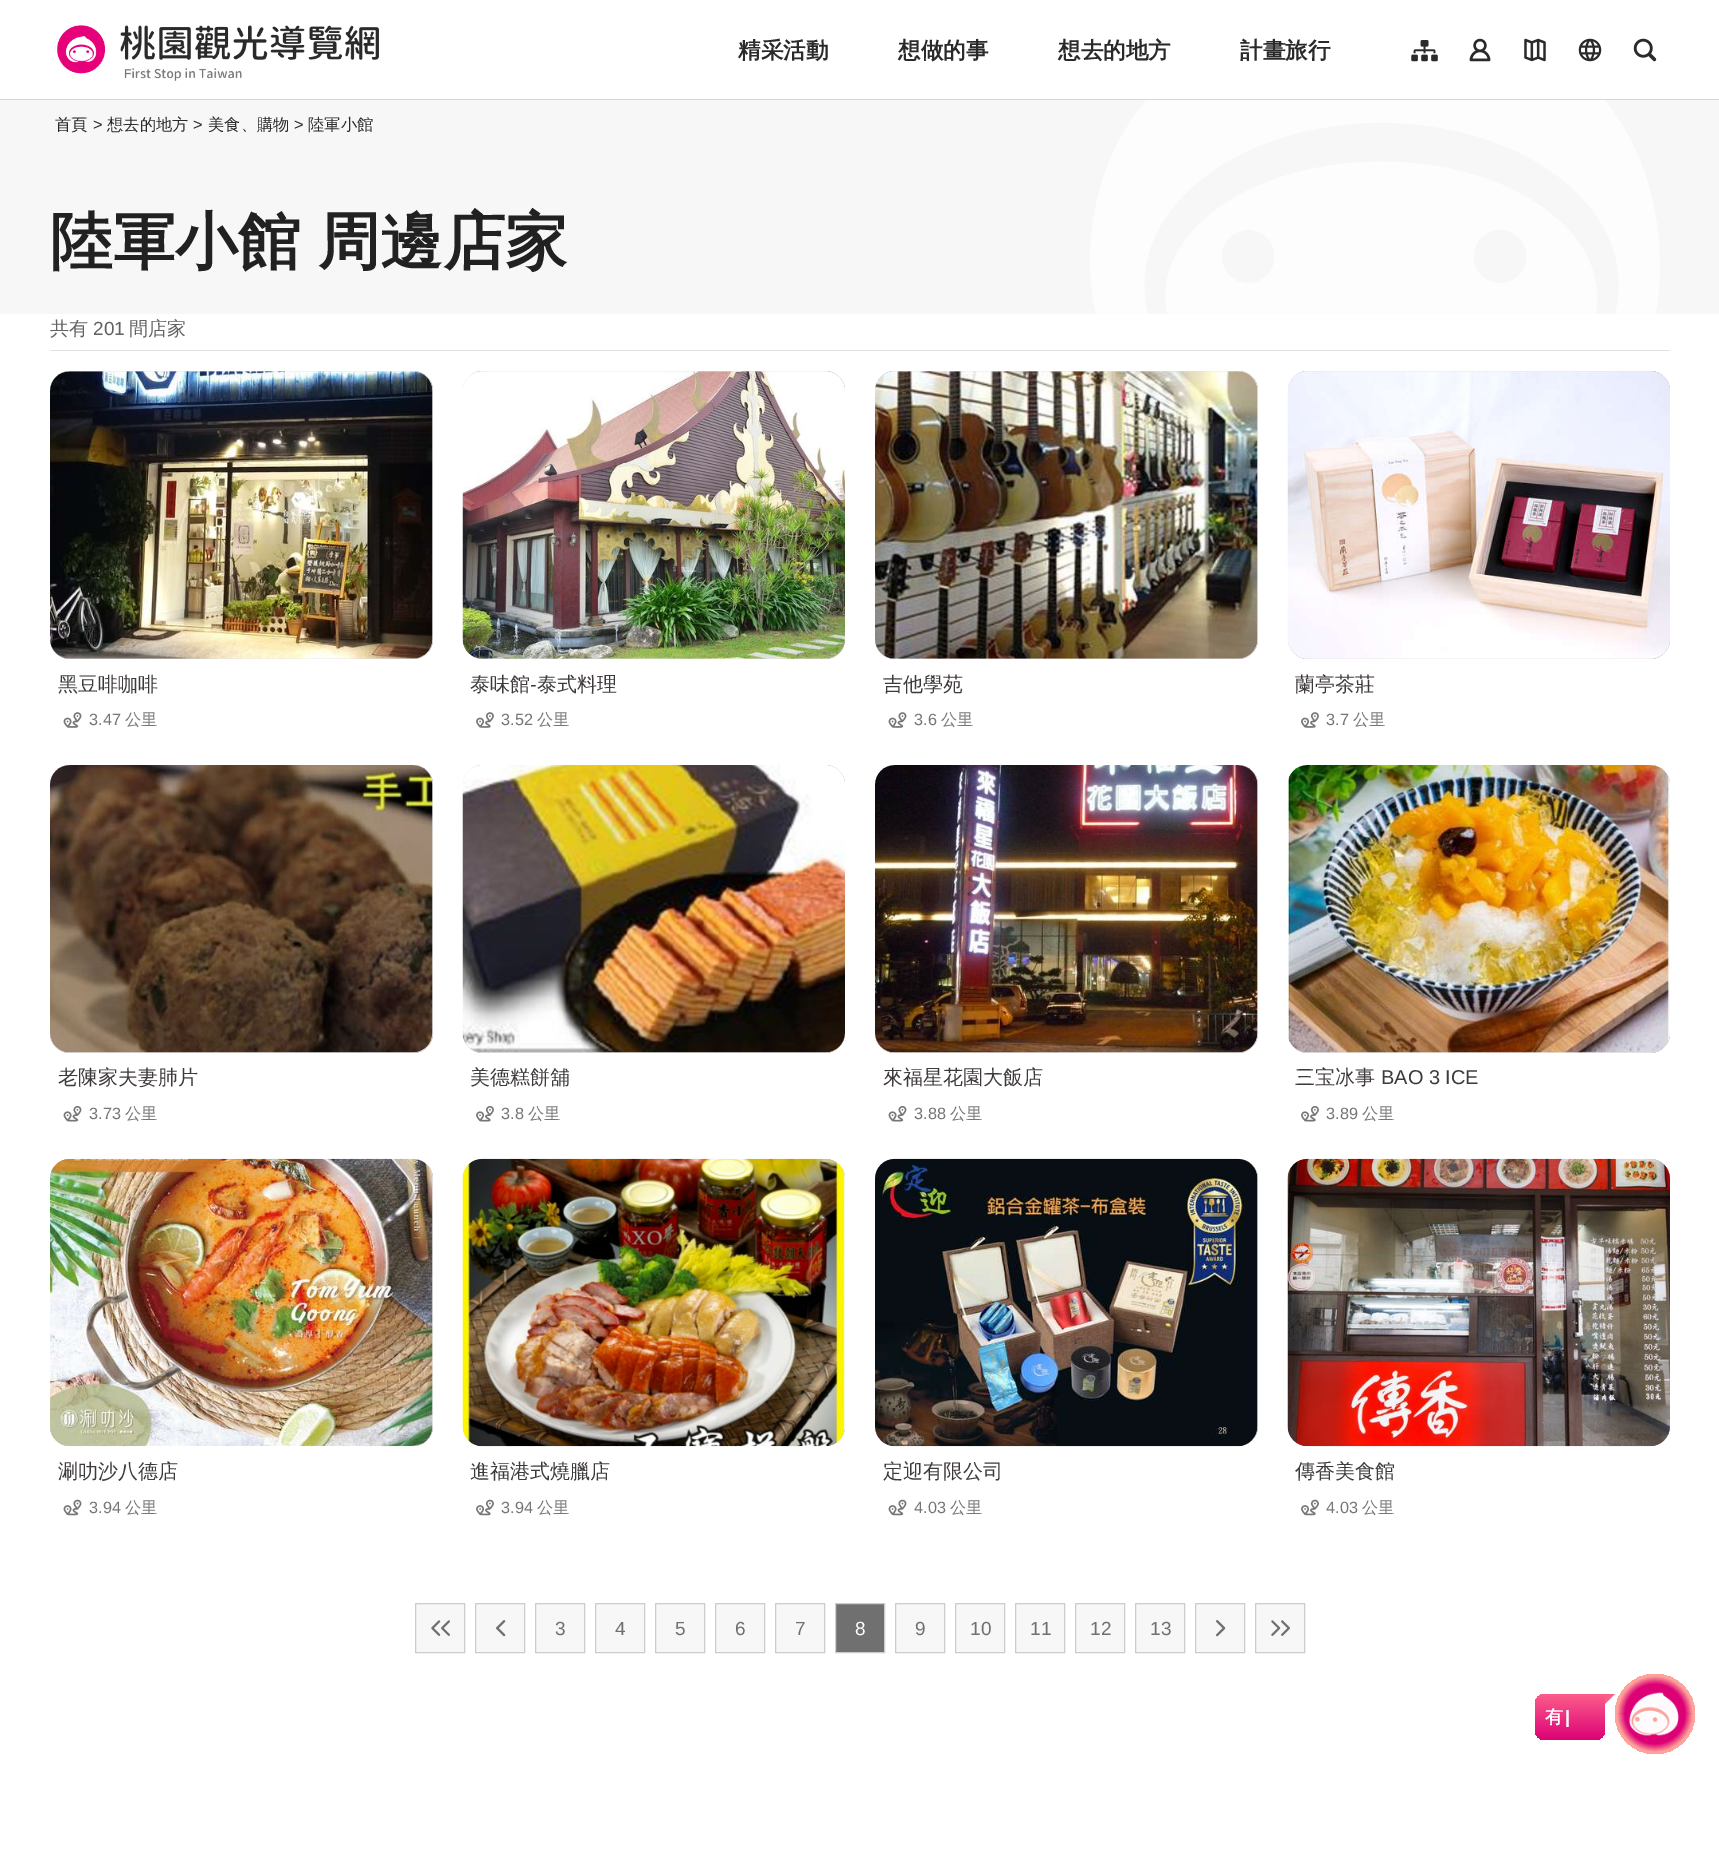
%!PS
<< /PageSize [1719 1873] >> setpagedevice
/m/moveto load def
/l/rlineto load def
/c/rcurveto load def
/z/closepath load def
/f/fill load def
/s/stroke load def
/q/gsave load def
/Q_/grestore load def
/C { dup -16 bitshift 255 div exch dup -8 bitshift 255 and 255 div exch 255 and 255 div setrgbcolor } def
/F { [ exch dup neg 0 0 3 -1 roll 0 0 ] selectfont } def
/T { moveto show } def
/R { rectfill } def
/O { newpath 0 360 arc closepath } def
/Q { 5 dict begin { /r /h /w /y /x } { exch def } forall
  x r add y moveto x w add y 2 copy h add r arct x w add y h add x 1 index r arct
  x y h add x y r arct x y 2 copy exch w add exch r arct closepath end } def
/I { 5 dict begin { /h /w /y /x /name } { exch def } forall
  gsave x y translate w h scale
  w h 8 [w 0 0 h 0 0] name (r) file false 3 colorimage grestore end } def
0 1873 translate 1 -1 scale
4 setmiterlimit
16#FFFFFF C
0 0 1719 1873 R
(1.rgb) 57 25 322 56 I
/WenQuanYiZenHei-Bold 22.5 F
16#2A2A2A C
(精采活動) 738 58 T
(想做的事) 898 58 T
(想去的地方) 1058 58 T
(計畫旅行) 1240 58 T
(2.rgb) 1411 40 27 22 I
(3.rgb) 1469 38 22 24 I
(4.rgb) 1524 38 22 24 I
(5.rgb) 1578 38 24 24 I
(6.rgb) 1633 38 24 24 I
16#D7D7D7 C
0 99 1719 1 R
16#F7F7F7 C
0 100 1719 214 R
/WenQuanYiZenHei-Medium 16.25 F
16#2A2A2A C
(首頁) 55 130 T
/LiberationSans-Regular 16.25 F
(>) 93 130 T
/WenQuanYiZenHei-Medium 16.25 F
(想去的地方) 107 130 T
/LiberationSans-Regular 16.25 F
(>) 193 130 T
/WenQuanYiZenHei-Medium 16.25 F
(美食、購物) 208 130 T
/LiberationSans-Regular 16.25 F
(>) 294 130 T
/WenQuanYiZenHei-Medium 16.25 F
(陸軍小館) 308 130 T
(7.rgb) 1090 100 570 214 I
/WenQuanYiZenHei-Bold 62.5 F
16#212121 C
50 263 m -1 0 32 (陸軍小館 周邊店家) widthshow
16#E3E3E3 C
50 350 1620 1 R
/WenQuanYiZenHei-Medium 19 F
16#626262 C
(共有) 50 335 T
/LiberationSans-Regular 19 F
(201) 93 335 T
/WenQuanYiZenHei-Medium 19 F
(間店家) 129 335 T
16#E6E6E6 C
50 371 383 288 20 Q f
(8.rgb) 50 371 383 288 I
/WenQuanYiZenHei-Medium 20 F
16#3E3A39 C
(黑豆啡咖啡) 58 691 T
(9.rgb) 63 712 19 16 I
/LiberationSans-Regular 16.25 F
16#767676 C
(3.47) 89 725 T
/WenQuanYiZenHei-Medium 16.25 F
(公里) 125 725 T
16#E6E6E6 C
463 371 382 288 20 Q f
(10.rgb) 462 371 383 288 I
/WenQuanYiZenHei-Medium 20 F
16#3E3A39 C
(泰味館) 470 691 T
/LiberationSans-Regular 20 F
(-) 530 691 T
/WenQuanYiZenHei-Medium 20 F
(泰式料理) 537 691 T
(11.rgb) 476 712 18 16 I
/LiberationSans-Regular 16.25 F
16#767676 C
(3.52) 501 725 T
/WenQuanYiZenHei-Medium 16.25 F
(公里) 537 725 T
16#E6E6E6 C
875 371 383 288 20 Q f
(12.rgb) 875 371 383 288 I
/WenQuanYiZenHei-Medium 20 F
16#3E3A39 C
(吉他學苑) 883 691 T
(9.rgb) 888 712 19 16 I
/LiberationSans-Regular 16.25 F
16#767676 C
(3.6) 914 725 T
/WenQuanYiZenHei-Medium 16.25 F
(公里) 941 725 T
16#E6E6E6 C
1288 371 382 288 20 Q f
(13.rgb) 1287 371 383 288 I
/WenQuanYiZenHei-Medium 20 F
16#3E3A39 C
(蘭亭茶莊) 1295 691 T
(11.rgb) 1301 712 18 16 I
/LiberationSans-Regular 16.25 F
16#767676 C
(3.7) 1326 725 T
/WenQuanYiZenHei-Medium 16.25 F
(公里) 1353 725 T
16#E6E6E6 C
50 765 383 288 20 Q f
(14.rgb) 50 765 383 288 I
/WenQuanYiZenHei-Medium 20 F
16#3E3A39 C
(老陳家夫妻肺片) 58 1084 T
(15.rgb) 63 1105 19 17 I
/LiberationSans-Regular 16.25 F
16#767676 C
(3.73) 89 1119 T
/WenQuanYiZenHei-Medium 16.25 F
(公里) 125 1119 T
16#E6E6E6 C
463 765 382 288 20 Q f
(16.rgb) 462 765 383 288 I
/WenQuanYiZenHei-Medium 20 F
16#3E3A39 C
(美德糕餅舖) 470 1084 T
(17.rgb) 476 1106 18 16 I
/LiberationSans-Regular 16.25 F
16#767676 C
(3.8) 501 1119 T
/WenQuanYiZenHei-Medium 16.25 F
(公里) 528 1119 T
16#E6E6E6 C
875 765 383 288 20 Q f
(18.rgb) 875 765 383 288 I
/WenQuanYiZenHei-Medium 20 F
16#3E3A39 C
(來福星花園大飯店) 883 1084 T
(15.rgb) 888 1105 19 17 I
/LiberationSans-Regular 16.25 F
16#767676 C
(3.88) 914 1119 T
/WenQuanYiZenHei-Medium 16.25 F
(公里) 950 1119 T
16#E6E6E6 C
1288 765 382 288 20 Q f
(19.rgb) 1287 765 383 288 I
/WenQuanYiZenHei-Medium 20 F
16#3E3A39 C
(三宝冰事) 1295 1084 T
/LiberationSans-Regular 20 F
(BAO 3 ICE) 1381 1084 T
(17.rgb) 1301 1106 18 16 I
/LiberationSans-Regular 16.25 F
16#767676 C
(3.89) 1326 1119 T
/WenQuanYiZenHei-Medium 16.25 F
(公里) 1362 1119 T
16#E6E6E6 C
50 1159 383 287 20 Q f
(20.rgb) 50 1158 383 289 I
/WenQuanYiZenHei-Medium 20 F
16#3E3A39 C
(涮叻沙八德店) 58 1478 T
(21.rgb) 63 1499 19 17 I
/LiberationSans-Regular 16.25 F
16#767676 C
(3.94) 89 1513 T
/WenQuanYiZenHei-Medium 16.25 F
(公里) 125 1513 T
(22.rgb) 462 1158 383 289 I
/WenQuanYiZenHei-Medium 20 F
16#3E3A39 C
(進福港式燒臘店) 470 1478 T
(23.rgb) 476 1499 18 17 I
/LiberationSans-Regular 16.25 F
16#767676 C
(3.94) 501 1513 T
/WenQuanYiZenHei-Medium 16.25 F
(公里) 537 1513 T
16#E6E6E6 C
875 1159 383 287 20 Q f
(24.rgb) 875 1158 383 289 I
/WenQuanYiZenHei-Medium 20 F
16#3E3A39 C
(定迎有限公司) 883 1478 T
(21.rgb) 888 1499 19 17 I
/LiberationSans-Regular 16.25 F
16#767676 C
(4.03) 914 1513 T
/WenQuanYiZenHei-Medium 16.25 F
(公里) 950 1513 T
(25.rgb) 1287 1158 383 289 I
/WenQuanYiZenHei-Medium 20 F
16#3E3A39 C
(傳香美食館) 1295 1478 T
(23.rgb) 1301 1499 18 17 I
/LiberationSans-Regular 16.25 F
16#767676 C
(4.03) 1326 1513 T
/WenQuanYiZenHei-Medium 16.25 F
(公里) 1362 1513 T
16#F7F7F7 C
415.5 1603.5 m 49 0 l 0 49 l -49 0 l z q f Q_
16#CCCCCC C
s
(26.rgb) 431 1620 19 16 I
16#F7F7F7 C
475.5 1603.5 m 49 0 l 0 49 l -49 0 l z q f Q_
16#CCCCCC C
s
(27.rgb) 496 1620 10 17 I
16#F7F7F7 C
535.5 1603.5 m 49 0 l 0 49 l -49 0 l z q f Q_
16#CCCCCC C
s
/LiberationSans-Regular 19 F
16#707070 C
(3) 555 1635 T
16#F7F7F7 C
595.5 1603.5 m 49 0 l 0 49 l -49 0 l z q f Q_
16#CCCCCC C
s
16#707070 C
(4) 615 1635 T
16#F7F7F7 C
655.5 1603.5 m 49 0 l 0 49 l -49 0 l z q f Q_
16#CCCCCC C
s
16#707070 C
(5) 675 1635 T
16#F7F7F7 C
715.5 1603.5 m 49 0 l 0 49 l -49 0 l z q f Q_
16#CCCCCC C
s
16#707070 C
(6) 735 1635 T
16#F7F7F7 C
775.5 1603.5 m 49 0 l 0 49 l -49 0 l z q f Q_
16#CCCCCC C
s
16#707070 C
(7) 795 1635 T
835.5 1603.5 m 49 0 l 0 49 l -49 0 l z q f Q_
16#CCCCCC C
s
16#FFFFFF C
(8) 855 1635 T
16#F7F7F7 C
895.5 1603.5 m 49 0 l 0 49 l -49 0 l z q f Q_
16#CCCCCC C
s
16#707070 C
(9) 915 1635 T
16#F7F7F7 C
955.5 1603.5 m 49 0 l 0 49 l -49 0 l z q f Q_
16#CCCCCC C
s
16#707070 C
(10) 970 1635 T
16#F7F7F7 C
1015.5 1603.5 m 49 0 l 0 49 l -49 0 l z q f Q_
16#CCCCCC C
s
16#707070 C
(11) 1030 1635 T
16#F7F7F7 C
1075.5 1603.5 m 49 0 l 0 49 l -49 0 l z q f Q_
16#CCCCCC C
s
16#707070 C
(12) 1090 1635 T
16#F7F7F7 C
1135.5 1603.5 m 49 0 l 0 49 l -49 0 l z q f Q_
16#CCCCCC C
s
16#707070 C
(13) 1150 1635 T
16#F7F7F7 C
1195.5 1603.5 m 49 0 l 0 49 l -49 0 l z q f Q_
16#CCCCCC C
s
(28.rgb) 1216 1620 10 17 I
16#F7F7F7 C
1255.5 1603.5 m 49 0 l 0 49 l -49 0 l z q f Q_
16#CCCCCC C
s
(29.rgb) 1271 1620 19 16 I
16#FC5E8A C
1615 1694 m -10 0 l 0 10 l z f
q 1545 1694 m 60 0 l 0 36 l 0 5.5 -4.5 10 -10 10 c -50 0 l -5.5 0 -10 -4.5 -10 -10 c 0 -26 l 0 -5.5 4.5 -10 10 -10 c z clip newpath
<< /ShadingType 2 /ColorSpace /DeviceRGB /Coords [1570 1694 1570 1740] /Extend [true true] /Function << /FunctionType 2 /Domain [0 1] /C0 [.988 .369 .541] /C1 [.863 .004 .459] /N 1 >> >> shfill Q_
/WenQuanYiZenHei-Bold 18 F
16#FFFFFF C
(有) 1545 1723 T
/LiberationSans-Bold 18 F
(|) 1565 1723 T
q 1655 1714 40 O clip newpath 1655 1714 translate 40 40 scale
<< /ShadingType 3 /ColorSpace /DeviceRGB /Coords [0 0 0 0 0 1] /Extend [true true] /Function << /FunctionType 3 /Domain [0 1] /Functions [<< /FunctionType 2 /Domain [0 1] /C0 [.863 .004 .459] /C1 [.863 .004 .459] /N 1 >> << /FunctionType 2 /Domain [0 1] /C0 [.863 .004 .459] /C1 [.996 .635 .604] /N 1 >> << /FunctionType 2 /Domain [0 1] /C0 [.996 .635 .604] /C1 [.996 .635 .604] /N 1 >>] /Bounds [.75 .95] /Encode [0 1 0 1 0 1] >> >> shfill Q_
(30.rgb) 1629 1692 50 44 I
showpage
